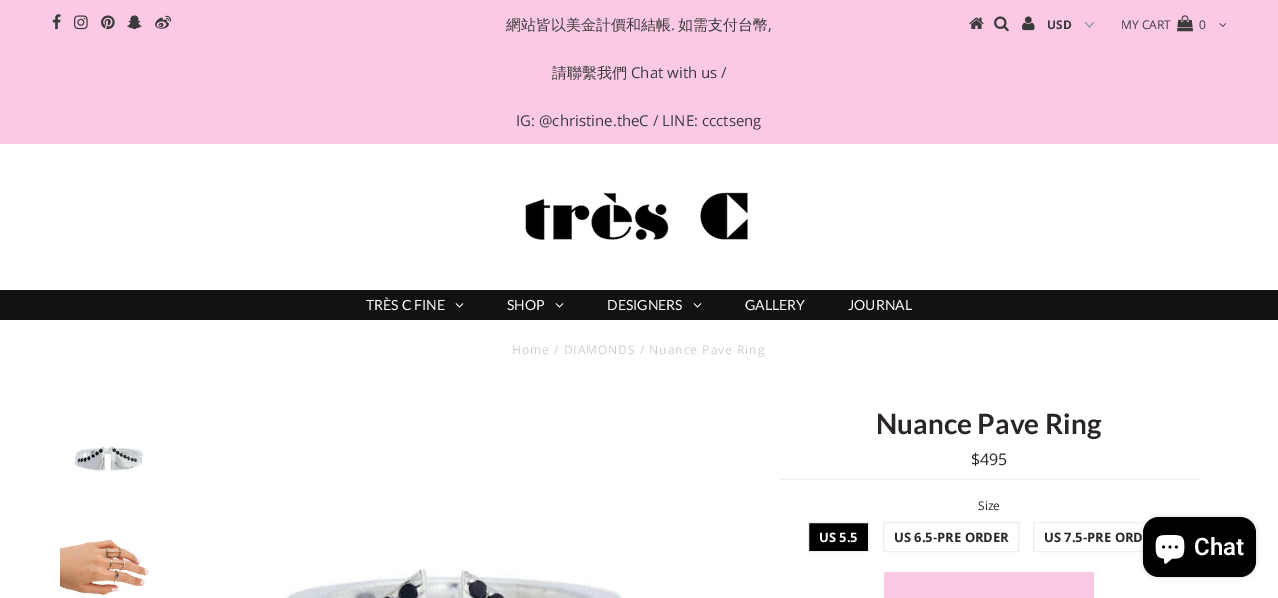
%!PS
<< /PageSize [1278 598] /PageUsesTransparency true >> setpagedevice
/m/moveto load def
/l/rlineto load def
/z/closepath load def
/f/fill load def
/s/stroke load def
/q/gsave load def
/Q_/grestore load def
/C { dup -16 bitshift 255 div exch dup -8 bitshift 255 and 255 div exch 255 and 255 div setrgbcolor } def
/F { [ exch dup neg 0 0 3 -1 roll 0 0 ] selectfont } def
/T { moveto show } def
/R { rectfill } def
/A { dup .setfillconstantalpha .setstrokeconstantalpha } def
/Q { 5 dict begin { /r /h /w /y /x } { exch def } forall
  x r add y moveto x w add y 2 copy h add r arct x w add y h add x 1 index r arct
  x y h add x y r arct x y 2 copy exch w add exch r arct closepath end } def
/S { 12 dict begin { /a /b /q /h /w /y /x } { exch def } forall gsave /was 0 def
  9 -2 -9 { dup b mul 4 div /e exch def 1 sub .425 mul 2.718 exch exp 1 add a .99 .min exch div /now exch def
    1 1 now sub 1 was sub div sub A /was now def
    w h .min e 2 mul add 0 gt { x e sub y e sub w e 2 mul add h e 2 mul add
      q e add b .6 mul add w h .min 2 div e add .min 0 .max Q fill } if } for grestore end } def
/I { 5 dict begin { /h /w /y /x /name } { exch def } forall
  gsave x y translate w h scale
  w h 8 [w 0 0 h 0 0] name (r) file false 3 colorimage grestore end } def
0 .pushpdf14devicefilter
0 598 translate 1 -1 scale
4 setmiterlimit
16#FFFFFF C
0 0 1278 598 R
16#FCC9E5 C
0 0 1278 144 R
(1.rgb) 52 14 9 16 I
(2.rgb) 74 15 14 15 I
(3.rgb) 101 15 14 15 I
(4.rgb) 127 15 15 15 I
(5.rgb) 155 15 16 14 I
/WenQuanYiZenHei-Medium 15 F
16#3B3B3B C
(網站皆以美金計價和結帳) 506 30 T
/OpenSans-Regular 15 F
(.) 671 30 T
/WenQuanYiZenHei-Medium 15 F
(如需支付台幣) 678 30 T
/OpenSans-Regular 15 F
(,) 768 30 T
/WenQuanYiZenHei-Medium 15 F
(請聯繫我們) 552 78 T
/OpenSans-Regular 15 F
(Chat with us /) 631 78 T
(IG: @christine.theC / LINE: ccctseng) 516 126 T
(6.rgb) 969 17 15 12 I
(7.rgb) 994 16 15 16 I
(8.rgb) 1022 16 13 15 I
(9.rgb) 1085 22 9 6 I
/OpenSans-Bold 12 F
(USD) 1047 29 T
/OpenSans-Regular 12 F
(MY CART) 1121 29 T
(10.rgb) 1177 15 16 17 I
(0) 1199 29 T
(11.rgb) 1219 23 8 4 I
(12.rgb) 525 190 224 52 I
16#131213 C
0 290 1278 30 R
/Lato-Regular 14 F
16#FFFCFF C
(TRÈS C FINE) 366 310 T
(13.rgb) 455 303 9 5 I
(SHOP) 507 310 T
(13.rgb) 555 303 9 5 I
(DESIGNERS) 607 310 T
(13.rgb) 693 303 9 5 I
(GALLERY) 745 310 T
(JOURNAL) 848 310 T
/OpenSans-Regular 12 F
16#CCCCCC C
512 354 m 1 0 (Home / DIAMONDS / Nuance Pave Ring) ashow
(14.rgb) 75 446 69 26 I
(15.rgb) 60 539 91 57 I
(16.rgb) 283 567 340 31 I
/Lato-Bold 28 F
16#292529 C
(Nuance Pave Ring) 876 434 T
/OpenSans-Regular 16 F
($495) 971 465 T
16#F0F0F0 C
779 479 421 1 R
/OpenSans-Regular 12 F
16#292529 C
(Size) 978 510 T
16#000000 C
808.5 522.5 m 60 0 l 0 29 l -60 0 l z q f Q_
16#EEEEEE C
s
/OpenSans-Bold 13 F
16#FFFCFF C
(US 5.5) 819 542 T
16#EEEEEE C
883.5 522.5 135 29 rectstroke
16#292529 C
(US 6.5-PRE ORDER) 894 542 T
16#EEEEEE C
1033.5 522.5 136 29 rectstroke
16#292529 C
(US 7.5-PRE ORD) 1044 542 T
16#FCC9E5 C
884 572 210 26 R
16#000000 C
1143 517 113 60 16 2.5 .15 S
1143 517 113 60 16 Q f
(17.rgb) 1155 535 30 29 I
/Roboto-SemiBold 24 F
16#FFFCFF C
(Chat) 1194 555 T
.poppdf14devicefilter showpage
